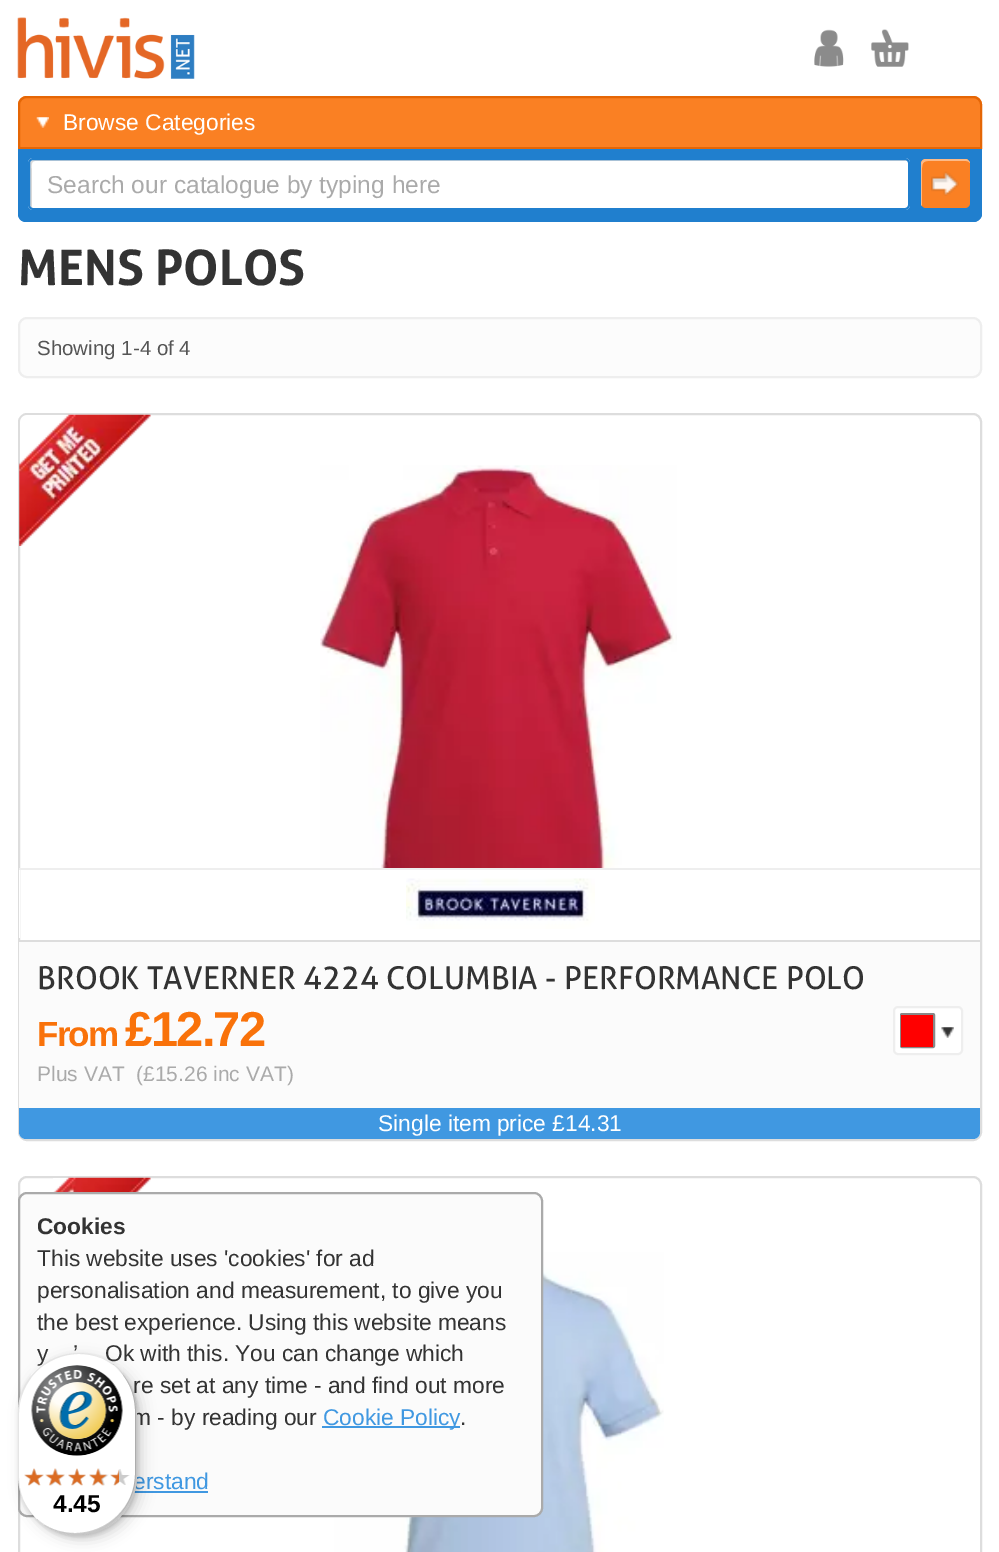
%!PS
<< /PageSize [999 1552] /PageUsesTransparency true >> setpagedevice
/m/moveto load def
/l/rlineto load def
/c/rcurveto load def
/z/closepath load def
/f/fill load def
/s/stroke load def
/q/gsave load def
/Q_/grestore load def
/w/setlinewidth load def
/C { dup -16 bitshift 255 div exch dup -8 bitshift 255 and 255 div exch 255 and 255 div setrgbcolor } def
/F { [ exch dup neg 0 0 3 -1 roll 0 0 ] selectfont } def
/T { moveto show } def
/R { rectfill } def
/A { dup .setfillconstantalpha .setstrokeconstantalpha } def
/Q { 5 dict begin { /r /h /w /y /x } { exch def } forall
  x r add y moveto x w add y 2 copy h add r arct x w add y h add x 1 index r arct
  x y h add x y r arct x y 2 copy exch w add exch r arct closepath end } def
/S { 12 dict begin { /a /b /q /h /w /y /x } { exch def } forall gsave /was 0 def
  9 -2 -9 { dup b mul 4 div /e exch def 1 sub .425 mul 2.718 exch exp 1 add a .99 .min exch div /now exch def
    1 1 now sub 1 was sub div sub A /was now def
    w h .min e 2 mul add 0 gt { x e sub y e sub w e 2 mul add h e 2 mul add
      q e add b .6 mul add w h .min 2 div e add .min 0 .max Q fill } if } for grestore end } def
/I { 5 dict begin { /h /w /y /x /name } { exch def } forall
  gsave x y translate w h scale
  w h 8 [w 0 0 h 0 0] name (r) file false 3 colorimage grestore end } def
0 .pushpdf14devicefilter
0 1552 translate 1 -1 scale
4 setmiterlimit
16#FFFFFF C
0 0 999 1552 R
(1.rgb) 17 17 178 62 I
16#FA8023 C
27 96 m 946 0 l 5 0 9 4 9 9 c 0 44 l -964 0 l 0 -44 l 0 -5 4 -9 9 -9 c z f
(2.rgb) 36 117 13 11 I
16#E56605 C
2 w
27 97 m 946 0 l 4.5 0 8 3.5 8 8 c 0 43 l -962 0 l 0 -43 l 0 -4.5 3.5 -8 8 -8 c z s
/LiberationSans-Regular 22.75 F
16#FFFFFF C
(Browse Categories) 63 130 T
16#207FCE C
18 149 m 964 0 l 0 64 l 0 5 -4 9 -9 9 c -946 0 l -5 0 -9 -4 -9 -9 c z f
18 149 m 964 0 l 0 65 l 0 4 -4 8 -9 8 c -947 0 l -5 0 -8 -4 -8 -8 c z 19 149 m 961 0 l 0 65 l 0 3 -3 6 -7 6 c -947 0 l -4 0 -7 -3 -7 -6 c z eofill
16#FFFFFF C
28 158 882 52 5 Q f
16#D9D9D9 C
35 161 m 871 0 l 2 0 l -1 -1 -2 -2 -4 -2 c -870 0 l -2 0 -4 2 -4 4 c 0 41 l 0 2 1 3 2 4 c 0 -37 l 0 -2 -2 -10 3 -10 c z f
16#207FCE C
29 159 880 50 4 Q s
/LiberationSans-Regular 24.5 F
16#AAAAAA C
(Search our catalogue by typing here) 47 193 T
16#FA8023 C
921 159 49 49 5 Q f
(3.rgb) 931 171 28 25 I
16#FCBA87 C
928 161 m 38 0 l 2 0 3 1 4 2 c -1 -3 -3 -4 -5 -4 c -39 0 l -3 0 -5 2 -5 5 c 0 39 l 0 1 0 2 1 3 c 0 -34 l 0 -5 -1 -11 6 -11 c z f
(4.rgb) 814 29 30 38 I
(5.rgb) 871 29 38 38 I
/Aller-Bold 49 F
16#333333 C
(MENS POLOS) 18 285 T
16#FCFCFC C
19 318 962 59 8 Q q f Q_
16#EEEEEE C
s
/LiberationSans-Regular 20.5 F
16#555555 C
(Showing 1-4 of 4) 37 355 T
16#DDDDDD C
19 414 962 726 8 Q s
(6.rgb) 19 414 132 132 I
(7.rgb) 320 465 357 403 I
16#FFFFFF C
19 870 1 68 R
16#EEEEEE C
19 868 961 2 R
(8.rgb) 406 878 189 51 I
16#FBFBFB C
19 940 m 961 0 l 0 192 l 0 4 -3 7 -7 7 c -947 0 l -4 0 -7 -3 -7 -7 c z f
16#DDDDDD C
19 940 961 2 R
/Aller-Regular 31.5 F
16#333333 C
(BROOK TAVERNER 4224 COLUMBIA - PERFORMANCE POLO) 37 989 T
/LiberationSans-Bold 35 F
16#F9720A C
37 1046 m -1.75 0 (From) ashow
/LiberationSans-Bold 49 F
125 1046 m -1.75 0 (£12.72) ashow
/LiberationSans-Regular 21 F
16#AAAAAA C
(Plus VAT) 37 1081 T
(\(£15.26 inc VAT\)) 136 1081 T
16#4098E1 C
19 1108 m 961 0 l 0 24 l 0 4 -3 7 -7 7 c -947 0 l -4 0 -7 -3 -7 -7 c z f
/LiberationSans-Regular 22.75 F
16#FFFFFF C
(Single item price £14.31) 378 1131 T
893 1006 70 49 5 Q f
(9.rgb) 941 1027 13 11 I
16#EEEEEE C
894 1007 68 47 4 Q s
16#888888 C
901 1014 33 33 1 Q s
16#FF0000 C
901 1015 32 32 R
16#DDDDDD C
19 1177 962 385 8 Q s
(10.rgb) 53 1177 98 15 I
(11.rgb) 334 1252 330 300 I
16#FBFBFB C
19 1193 523 323 8 Q q f Q_
16#AAAAAA C
s
/LiberationSans-Bold 22.75 F
16#333333 C
(Cookies) 37 1234 T
/LiberationSans-Regular 22.75 F
(This website uses 'cookies' for ad) 37 1266 T
(personalisation and measurement, to give you) 37 1298 T
(the best experience. Using this website means) 37 1330 T
(’) 73 1361 T
(Ok with this. You can change which) 105 1361 T
(y) 37 1361 T
(re set at any time - and find out more) 133 1393 T
(m - by reading our) 132 1425 T
16#4098E1 C
322 1426 138 2 R
(Cookie Policy) 323 1425 T
16#333333 C
(.) 460 1425 T
16#4098E1 C
(erstand) 133 1489 T
134 1491 74 2 R
16#000000 C
23 1358 119 182 59.5 7 .15 S
19 1355 119 182 59.5 2 .15 S
16#FFFFFF C
18 1353 119 182 59.5 Q f
0.1 A
16#000000 C
79 1354 m 15 0 28 5 38 14 c -11 -9 -24 -15 -39 -15 c -33 0 -60 27 -60 59 c 0 64 l 0 15 6 28 15 39 c -9 -10 -14 -23 -14 -38 c 0 -63 l 0 -33 27 -60 60 -60 c z f
0.2 A
37 1519 m 11 10 25 16 41 16 c 32 0 59 -27 59 -59 c 0 -64 l 0 -18 -8 -34 -22 -45 c 12 10 20 26 20 43 c 0 64 l 0 32 -27 59 -60 59 c -15 0 -28 -5 -38 -14 c z f
16#323232 C
44 1525 m 10 6 21 10 34 10 c 32 0 59 -27 59 -59 c 0 -64 l 0 -19 -10 -37 -24 -48 c 13 11 22 28 22 47 c 0 63 l 0 33 -26 60 -59 60 c -12 0 -23 -3 -32 -9 c z f
0.3 A
16#FFFFFF C
38 1520 m 11 9 24 15 40 15 c 32 0 59 -27 59 -59 c 0 -64 l 0 -19 -10 -37 -25 -48 c 15 11 24 28 24 47 c 0 63 l 0 33 -27 60 -60 60 c -15 0 -28 -5 -38 -14 c z f
1 A
(12.rgb) 31 1365 92 91 I
(13.rgb) 24 1469 20 16 I
(14.rgb) 47 1468 18 18 I
(15.rgb) 68 1469 18 16 I
(16.rgb) 89 1468 20 18 I
(17.rgb) 110 1469 20 16 I
(18.rgb) 24 1468 20 18 I
(19.rgb) 45 1468 20 18 I
(20.rgb) 68 1468 18 18 I
(21.rgb) 89 1468 18 18 I
(22.rgb) 110 1469 9 17 I
/LiberationSans-Bold 24.5 F
16#000000 C
(4.45) 53 1512 T
.poppdf14devicefilter showpage
